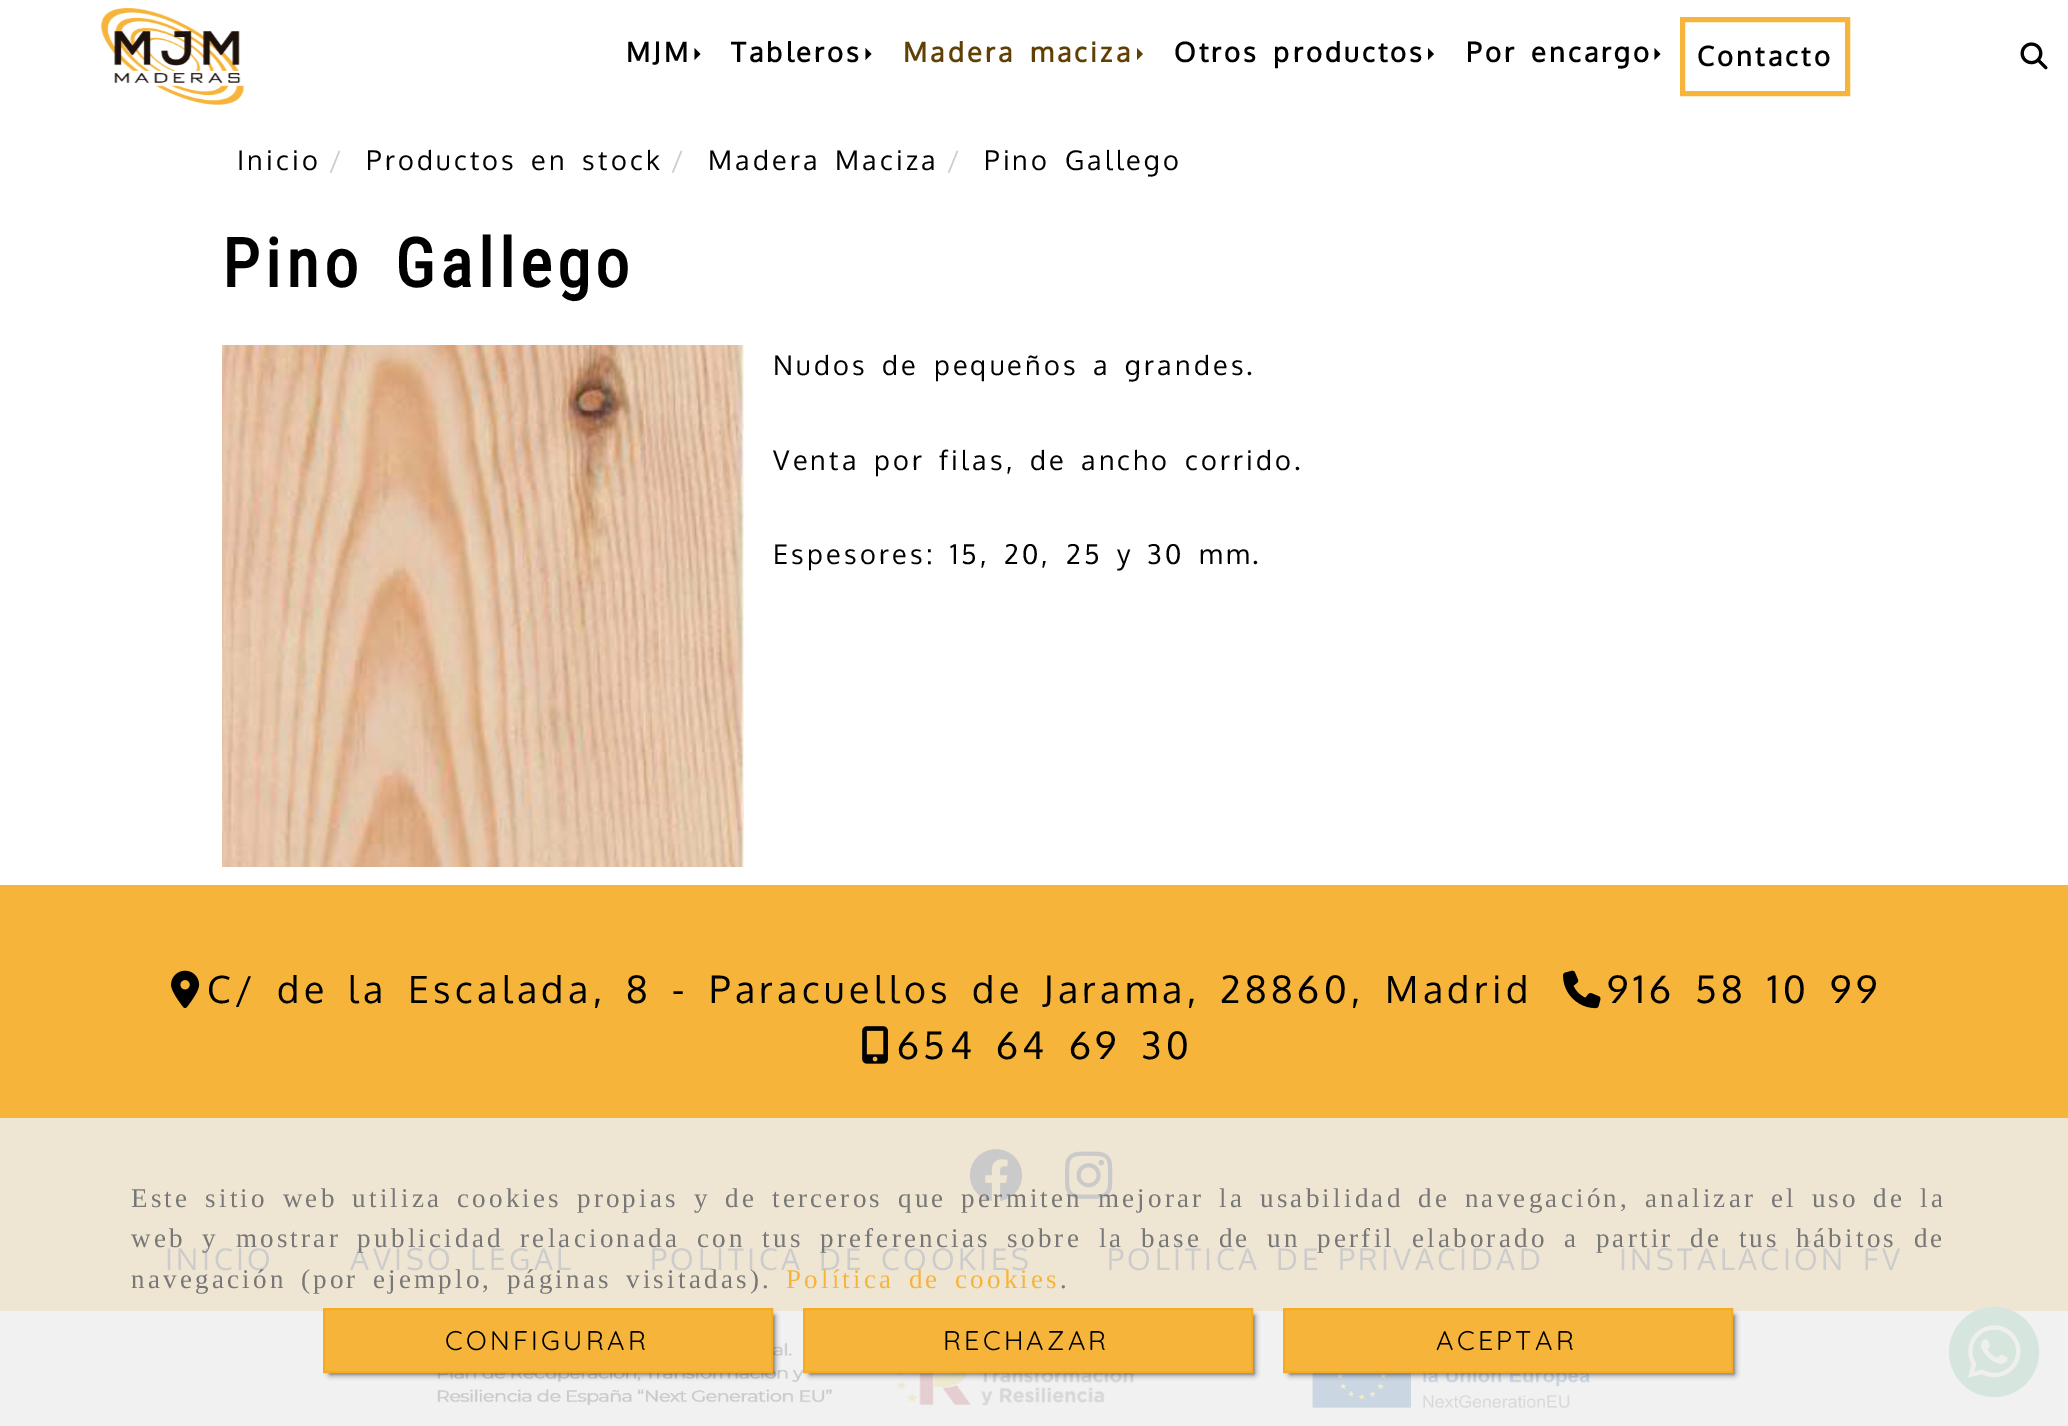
%!PS
<< /PageSize [2068 1426] /PageUsesTransparency true >> setpagedevice
/m/moveto load def
/l/rlineto load def
/z/closepath load def
/f/fill load def
/s/stroke load def
/q/gsave load def
/Q_/grestore load def
/w/setlinewidth load def
/C { dup -16 bitshift 255 div exch dup -8 bitshift 255 and 255 div exch 255 and 255 div setrgbcolor } def
/F { [ exch dup neg 0 0 3 -1 roll 0 0 ] selectfont } def
/R { rectfill } def
/A { dup .setfillconstantalpha .setstrokeconstantalpha } def
/O { newpath 0 360 arc closepath } def
/Q { 5 dict begin { /r /h /w /y /x } { exch def } forall
  x r add y moveto x w add y 2 copy h add r arct x w add y h add x 1 index r arct
  x y h add x y r arct x y 2 copy exch w add exch r arct closepath end } def
/S { 12 dict begin { /a /b /q /h /w /y /x } { exch def } forall gsave /was 0 def
  9 -2 -9 { dup b mul 4 div /e exch def 1 sub .425 mul 2.718 exch exp 1 add a .99 .min exch div /now exch def
    1 1 now sub 1 was sub div sub A /was now def
    w h .min e 2 mul add 0 gt { x e sub y e sub w e 2 mul add h e 2 mul add
      q e add b .6 mul add w h .min 2 div e add .min 0 .max Q fill } if } for grestore end } def
/I { 5 dict begin { /h /w /y /x /name } { exch def } forall
  gsave x y translate w h scale
  w h 8 [w 0 0 h 0 0] name (r) file false 3 colorimage grestore end } def
0 .pushpdf14devicefilter
0 1426 translate 1 -1 scale
4 setmiterlimit
16#FFFFFF C
0 0 2068 1426 R
16#F1F1F1 C
0 1311 2068 115 R
(1.rgb) 101 8 144 97 I
/Oxygen-Bold 27 F
16#000000 C
626 62 m 3.24 0 (MJM) ashow
694.5 60 m 0 -12 l 6 6 l z f
731 62 m 3.24 0 (Tableros) ashow
865.5 60 m 0 -12 l 6 6 l z f
16#604004 C
903 62 m 4.25 0 32 3.24 0 (Madera maciza) awidthshow
1137 60 m 0 -12 l 6 6 l z f
16#000000 C
1174 62 m 4.25 0 32 3.24 0 (Otros productos) awidthshow
1428 60 m 0 -12 l 6 6 l z f
1466 62 m 4.25 0 32 3.24 0 (Por encargo) awidthshow
1654.5 60 m 0 -12 l 6 6 l z f
16#F6B53A C
5 w
1682.5 19.5 165 74 rectstroke
16#000000 C
1697 66 m 3.24 0 (Contacto) ashow
(2.rgb) 2020 42 28 28 I
/Oxygen-Regular 27 F
237 170 m 3.24 0 (Inicio) ashow
16#CCCCCC C
329 170 m 3.24 0 (/) ashow
16#000000 C
366 170 m 4.25 0 32 3.24 0 (Productos en stock) awidthshow
16#CCCCCC C
671 170 m 3.24 0 (/) ashow
16#000000 C
708 170 m 4.25 0 32 3.24 0 (Madera Maciza) awidthshow
16#CCCCCC C
947 170 m 3.24 0 (/) ashow
16#000000 C
984 170 m 4.25 0 32 3.24 0 (Pino Gallego) awidthshow
/RobotoCondensed-Bold 67.5 F
222 287 m 11 0 32 5.4 0 (Pino Gallego) awidthshow
(3.rgb) 222 345 522 522 I
/Oxygen-Regular 27 F
773 375 m 4.25 0 32 3.24 0 (Nudos de pequeños a grandes.) awidthshow
773 470 m 4.25 0 32 3.24 0 (Venta por filas, de ancho corrido.) awidthshow
773 564 m 4.25 0 32 3.24 0 (Espesores: 15, 20, 25 y 30 mm.) awidthshow
16#F6B53A C
0 885 2068 233 R
16#EFE5D3 C
0 1118 2068 193 R
(4.rgb) 171 970 29 39 I
/Oxygen-Regular 37.5 F
16#000000 C
207 1003 m 6 0 32 4.5 0 (C/ de la Escalada, 8 -) awidthshow
709 1003 m 6 0 32 4.5 0 (Paracuellos de Jarama,) awidthshow
1220 1003 m 4.5 0 (28860,) ashow
1385 1003 m 4.5 0 (Madrid) ashow
(5.rgb) 1563 970 38 39 I
1607 1003 m 6 0 32 4.5 0 (916 58 10 99) awidthshow
(6.rgb) 862 1026 26 38 I
897 1059 m 6 0 32 4.5 0 (654 64 69 30) awidthshow
(7.rgb) 969 1149 54 52 I
(8.rgb) 1065 1151 48 48 I
/Oxygen-Regular 29.75 F
16#CCCCCC C
165 1270 m 3.6 0 (INICIO) ashow
350 1270 m 5 0 32 3.6 0 (AVISO LEGAL) awidthshow
650 1270 m 5 0 32 3.6 0 (POLÍTICA DE COOKIES) awidthshow
1107 1270 m 5 0 32 3.6 0 (POLÍTICA DE PRIVACIDAD) awidthshow
1619 1270 m 5 0 32 3.6 0 (INSTALACIÓN FV) awidthshow
/LiberationSerif-Regular 27 F
16#777777 C
131 1207 m 4.75 0 32 3.24 0 (Este sitio web utiliza cookies propias y de terceros que permiten mejorar la usabilidad de navegación, analizar el uso de la) awidthshow
131 1247 m 6.6 0 32 3.24 0 (web y mostrar publicidad relacionada con tus preferencias sobre la base de un perfil elaborado a partir de tus hábitos de) awidthshow
131 1288 m 4.25 0 32 3.24 0 (navegación \(por ejemplo, páginas visitadas\).) awidthshow
16#F6B53A C
786 1288 m 4.25 0 32 3.24 0 (Política de cookies) awidthshow
16#777777 C
1060 1288 m 3.24 0 (.) ashow
(10.rgb) 437 1343 396 63 I
16#000000 C
330 1316 444 58 0 3 .75 S
16#F6B53A C
324 1309 m 448 0 l 0 63 l -448 0 l z q f Q_
16#F5AC22 C
2 w
s
/Quicksand-Regular 27 F
16#000000 C
445 1350 m 3.24 0 (CONFIGURAR) ashow
(11.rgb) 896 1373 238 33 I
810 1316 444 58 0 3 .75 S
16#F6B53A C
804 1309 m 448 0 l 0 63 l -448 0 l z q f Q_
16#F5AC22 C
s
16#000000 C
943 1350 m 3.24 0 (RECHAZAR) ashow
(12.rgb) 1312 1373 278 36 I
1290 1316 444 58 0 3 .75 S
16#F6B53A C
1284 1309 m 448 0 l 0 63 l -448 0 l z q f Q_
16#F5AC22 C
s
16#000000 C
1436 1350 m 3.24 0 (ACEPTAR) ashow
16#D6E6DE C
1994 1352 45 O f
(9.rgb) 1968 1325 53 53 I
.poppdf14devicefilter showpage
